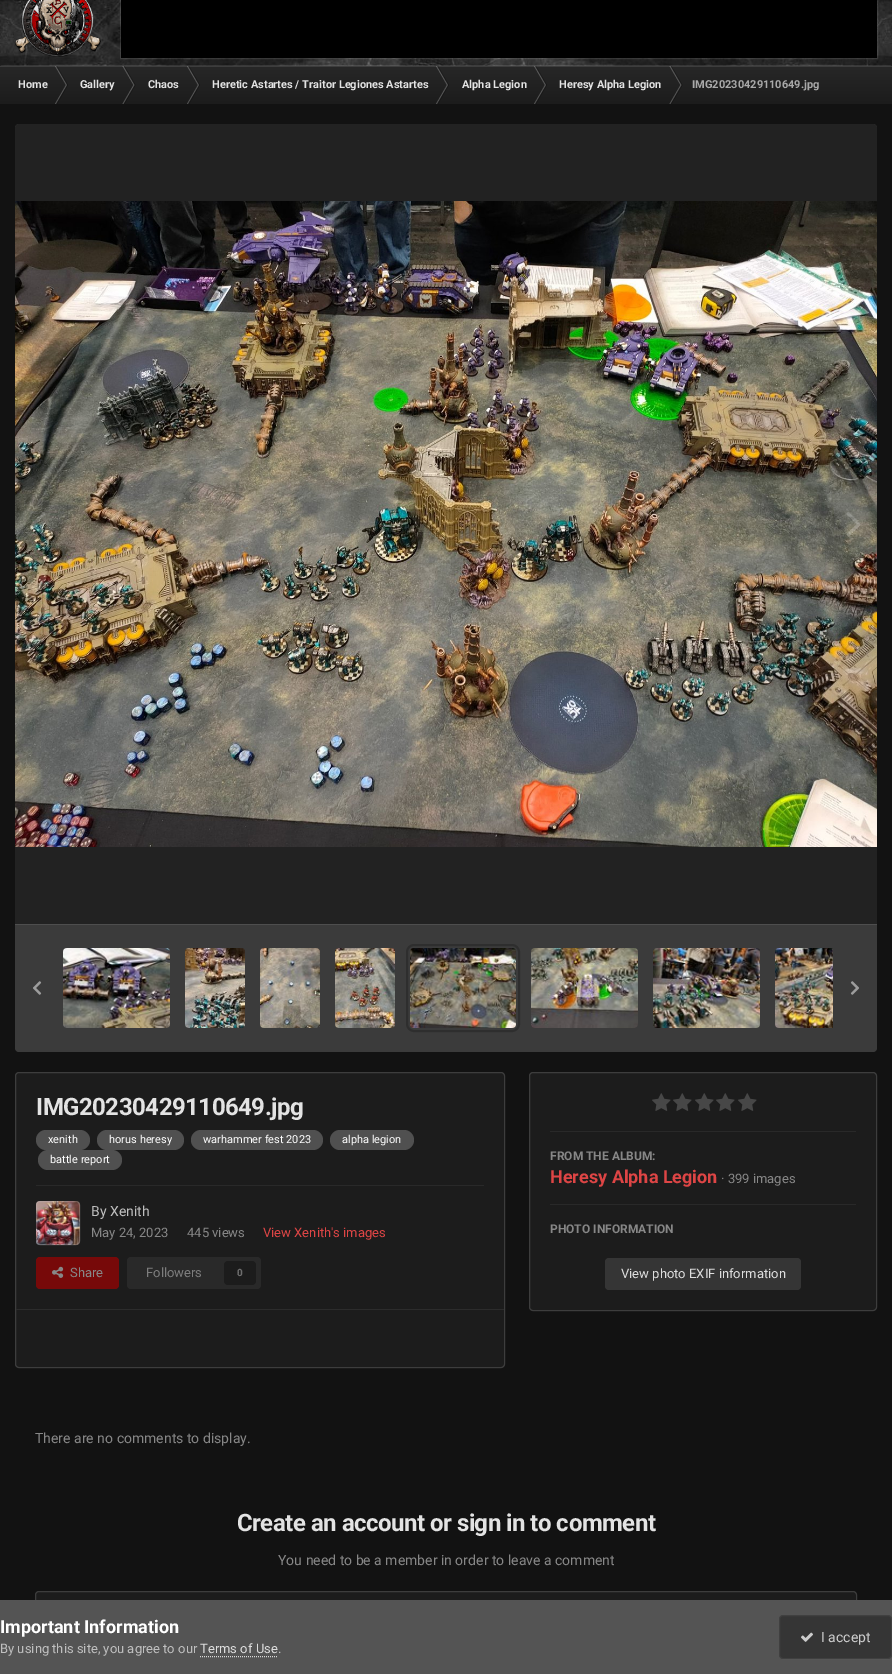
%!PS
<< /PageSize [892 1674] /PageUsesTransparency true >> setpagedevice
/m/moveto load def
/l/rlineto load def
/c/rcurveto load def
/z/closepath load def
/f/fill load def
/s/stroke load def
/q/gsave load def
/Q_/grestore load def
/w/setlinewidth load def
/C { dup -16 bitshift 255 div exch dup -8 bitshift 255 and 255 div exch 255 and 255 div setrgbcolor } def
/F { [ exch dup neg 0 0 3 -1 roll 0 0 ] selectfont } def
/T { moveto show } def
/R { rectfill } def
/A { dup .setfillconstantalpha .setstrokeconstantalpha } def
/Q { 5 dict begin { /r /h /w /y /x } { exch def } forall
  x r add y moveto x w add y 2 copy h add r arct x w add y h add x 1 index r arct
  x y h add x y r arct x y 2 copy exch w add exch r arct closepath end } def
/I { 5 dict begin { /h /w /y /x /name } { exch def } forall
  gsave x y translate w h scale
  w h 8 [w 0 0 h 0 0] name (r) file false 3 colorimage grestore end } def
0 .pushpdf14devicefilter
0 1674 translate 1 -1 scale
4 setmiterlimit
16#FFFFFF C
0 0 892 1674 R
(1.rgb) 0 0 892 66 I
(2.rgb) 15 0 86 57 I
0.1 A
120.5 -.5 757 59 rectstroke
1 A
16#000000 C
121 0 756 58 R
0.1 A
16#FFFFFF C
-.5 65.5 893 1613 3.5 Q s
1 A
16#121212 C
0 104 892 1496 R
q 0 67 m 892 0 l 0 37 l -892 0 l z clip newpath
<< /ShadingType 2 /ColorSpace /DeviceRGB /Coords [446 66 446 104] /Extend [true true] /Function << /FunctionType 2 /Domain [0 1] /C0 [.153 .153 .153] /C1 [.11 .11 .11] /N 1 >> >> shfill Q_
16#3D3D3D C
0 66 892 1 R
/Roboto-Bold 11 F
16#E3E3E3 C
(Home) 18 88 T
0.25 A
16#FFFFFF C
55 66 m 1 0 l 11 19 l -1 0 l z f
0.3 A
16#000000 C
56 66 m 1 0 l 11 19 l -1 0 l z f
0.25 A
16#FFFFFF C
55 104 m 1 0 l 11 -19 l -1 0 l z f
0.3 A
16#000000 C
56 104 m 1 0 l 11 -19 l -1 0 l z f
1 A
16#E3E3E3 C
(Gallery) 80 88 T
0.25 A
16#FFFFFF C
122.5 66 m 1 0 l 11 19 l -1 0 l z f
0.3 A
16#000000 C
123.5 66 m 1 0 l 11 19 l -1 0 l z f
0.25 A
16#FFFFFF C
122.5 104 m 1 0 l 11 -19 l -1 0 l z f
0.3 A
16#000000 C
123.5 104 m 1 0 l 11 -19 l -1 0 l z f
1 A
16#E3E3E3 C
(Chaos) 148 88 T
0.25 A
16#FFFFFF C
187 66 m 1 0 l 11 19 l -1 0 l z f
0.3 A
16#000000 C
188 66 m 1 0 l 11 19 l -1 0 l z f
0.25 A
16#FFFFFF C
187 104 m 1 0 l 11 -19 l -1 0 l z f
0.3 A
16#000000 C
188 104 m 1 0 l 11 -19 l -1 0 l z f
1 A
16#E3E3E3 C
(Heretic Astartes / Traitor Legiones Astartes) 212 88 T
0.25 A
16#FFFFFF C
436 66 m 1 0 l 11 19 l -1 0 l z f
0.3 A
16#000000 C
437 66 m 1 0 l 11 19 l -1 0 l z f
0.25 A
16#FFFFFF C
436 104 m 1 0 l 11 -19 l -1 0 l z f
0.3 A
16#000000 C
437 104 m 1 0 l 11 -19 l -1 0 l z f
1 A
16#E3E3E3 C
(Alpha Legion) 462 88 T
0.25 A
16#FFFFFF C
534 66 m 1 0 l 11 19 l -1 0 l z f
0.3 A
16#000000 C
535 66 m 1 0 l 11 19 l -1 0 l z f
0.25 A
16#FFFFFF C
534 104 m 1 0 l 11 -19 l -1 0 l z f
0.3 A
16#000000 C
535 104 m 1 0 l 11 -19 l -1 0 l z f
1 A
16#E3E3E3 C
(Heresy Alpha Legion) 559 88 T
0.25 A
16#FFFFFF C
669.5 66 m 1 0 l 11 19 l -1 0 l z f
0.3 A
16#000000 C
670.5 66 m 1 0 l 11 19 l -1 0 l z f
0.25 A
16#FFFFFF C
669.5 104 m 1 0 l 11 -19 l -1 0 l z f
0.3 A
16#000000 C
670.5 104 m 1 0 l 11 -19 l -1 0 l z f
1 A
16#A9A9A9 C
(IMG20230429110649.jpg) 692 88 T
16#545454 C
19 124 m 854 0 l 2 0 4 2 4 4 c 0 796 l -862 0 l 0 -796 l 0 -2 2 -4 4 -4 c z f
0.6 A
16#000000 C
19 124 m 854 0 l 2 0 4 2 4 4 c 0 796 l -862 0 l 0 -796 l 0 -2 2 -4 4 -4 c z f
1 A
(3.rgb) 15 201 862 646 I
(4.rgb) 31 512 15 25 I
(5.rgb) 846 512 15 25 I
16#545454 C
15 924 m 862 0 l 0 124 l 0 2 -2 4 -4 4 c -854 0 l -2 0 -4 -2 -4 -4 c z f
0.3 A
16#000000 C
15 924 m 862 0 l 0 124 l 0 2 -2 4 -4 4 c -854 0 l -2 0 -4 -2 -4 -4 c z f
1 A
16#4E4E4E C
15 924 862 1 R
(6.rgb) 63 948 107 80 I
(7.rgb) 185 948 60 80 I
(8.rgb) 260 948 60 80 I
(9.rgb) 335 948 60 80 I
16#2E2E2E C
2 w
407 945 112 86 7 Q s
(10.rgb) 410 948 106 80 I
(11.rgb) 531 948 107 80 I
(12.rgb) 653 948 107 80 I
(13.rgb) 775 948 58 80 I
(14.rgb) 33 981 9 14 I
(15.rgb) 850 981 9 14 I
16#1C1C1C C
15 1072 490 296 4 Q f
0.2 A
16#BFBFBF C
1 w
15.5 1072.5 489 295 3.5 Q s
/Roboto-Bold 24 F
1 A
16#E3E3E3 C
36 1115 m -.5 0 (IMG20230429110649.jpg) ashow
16#505050 C
36 1130 54 20 10 Q f
/Roboto-Regular 11 F
16#FFFFFF C
(xenith) 48 1143 T
16#505050 C
97 1130 87 20 10 Q f
16#FFFFFF C
(horus heresy) 109 1143 T
16#505050 C
191 1130 132 20 10 Q f
16#FFFFFF C
(warhammer fest 2023) 203 1143 T
16#505050 C
330 1130 84 20 10 Q f
16#FFFFFF C
(alpha legion) 342 1143 T
16#505050 C
38 1150 84 20 10 Q f
16#FFFFFF C
(battle report) 50 1163 T
16#292929 C
36 1185 448 1 R
(16.rgb) 36 1201 44 44 I
0.3 A
16#BFBFBF C
36.5 1201.5 43 43 3.5 Q s
/Roboto-Regular 14 F
1 A
(By Xenith) 91 1216 T
/Roboto-Regular 13 F
16#878787 C
(May 24, 2023) 91 1237 T
(445 views) 187 1237 T
16#DE4545 C
(View Xenith's images) 263 1237 T
16#770909 C
36 1257 83 32 4 Q f
(17.rgb) 52 1266 12 12 I
16#878787 C
(Share) 70 1277 T
16#292929 C
127 1257 134 32 4 Q f
16#7D7D7D C
(Followers) 146 1277 T
16#1C1C1C C
224 1261 32 24 4 Q f
/Roboto-Bold 10 F
16#6E6E6E C
(0) 237 1276 T
16#2C2C2C C
16 1309 488 1 R
16#1C1C1C C
529 1072 348 239 4 Q f
0.2 A
16#BFBFBF C
529.5 1072.5 347 238 3.5 Q s
1 A
(18.rgb) 652 1093 19 18 I
(18.rgb) 673 1093 19 18 I
(18.rgb) 695 1093 19 18 I
(18.rgb) 716 1093 19 18 I
(18.rgb) 738 1093 19 18 I
16#292929 C
550 1131 306 1 R
/Roboto-Bold 12 F
16#878787 C
(FROM THE ALBUM:) 550 1160 T
/Roboto-Bold 18 F
16#DE4545 C
(Heresy Alpha Legion) 550 1183 T
/Roboto-Regular 13 F
16#878787 C
(· 399 images) 721 1183 T
16#292929 C
550 1204 306 1 R
/Roboto-Bold 12 F
16#878787 C
(PHOTO INFORMATION) 550 1233 T
16#353535 C
605 1258 196 32 4 Q f
/Roboto-Regular 13 F
16#DDDDDD C
(View photo EXIF information) 621 1278 T
/Roboto-Regular 14 F
16#878787 C
(There are no comments to display.) 35 1443 T
/Roboto-Bold 24 F
16#E3E3E3 C
237 1531 m -.5 0 (Create an account or sign in to comment) ashow
/Roboto-Regular 14 F
16#878787 C
(You need to be a member in order to leave a comment) 278 1565 T
16#1C1C1C C
35 1591 822 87 4 Q f
0.2 A
16#BFBFBF C
35.5 1591.5 821 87 3.5 Q s
1 A
16#545454 C
0 1600 892 74 R
/Roboto-Bold 18 F
16#FFFFFF C
(Important Information) 0 1633 T
/Roboto-Regular 13 F
16#BFBFBF C
(By using this site, you agree to our) 0 1653 T
16#DDDDDD C
(Terms of Use) 200 1653 T
16#DADADA C
[1 1] 0 setdash
200 1656.5 m 78 0 l s
16#BFBFBF C
(.) 278 1653 T
16#353535 C
779 1615 113 44 4 Q f
0.07 A
16#CCCCCC C
[] 0 setdash
779.5 1615.5 112 43 3.5 Q s
1 A
(19.rgb) 801 1632 12 10 I
/Roboto-Regular 14 F
(I accept) 821 1642 T
.poppdf14devicefilter showpage
